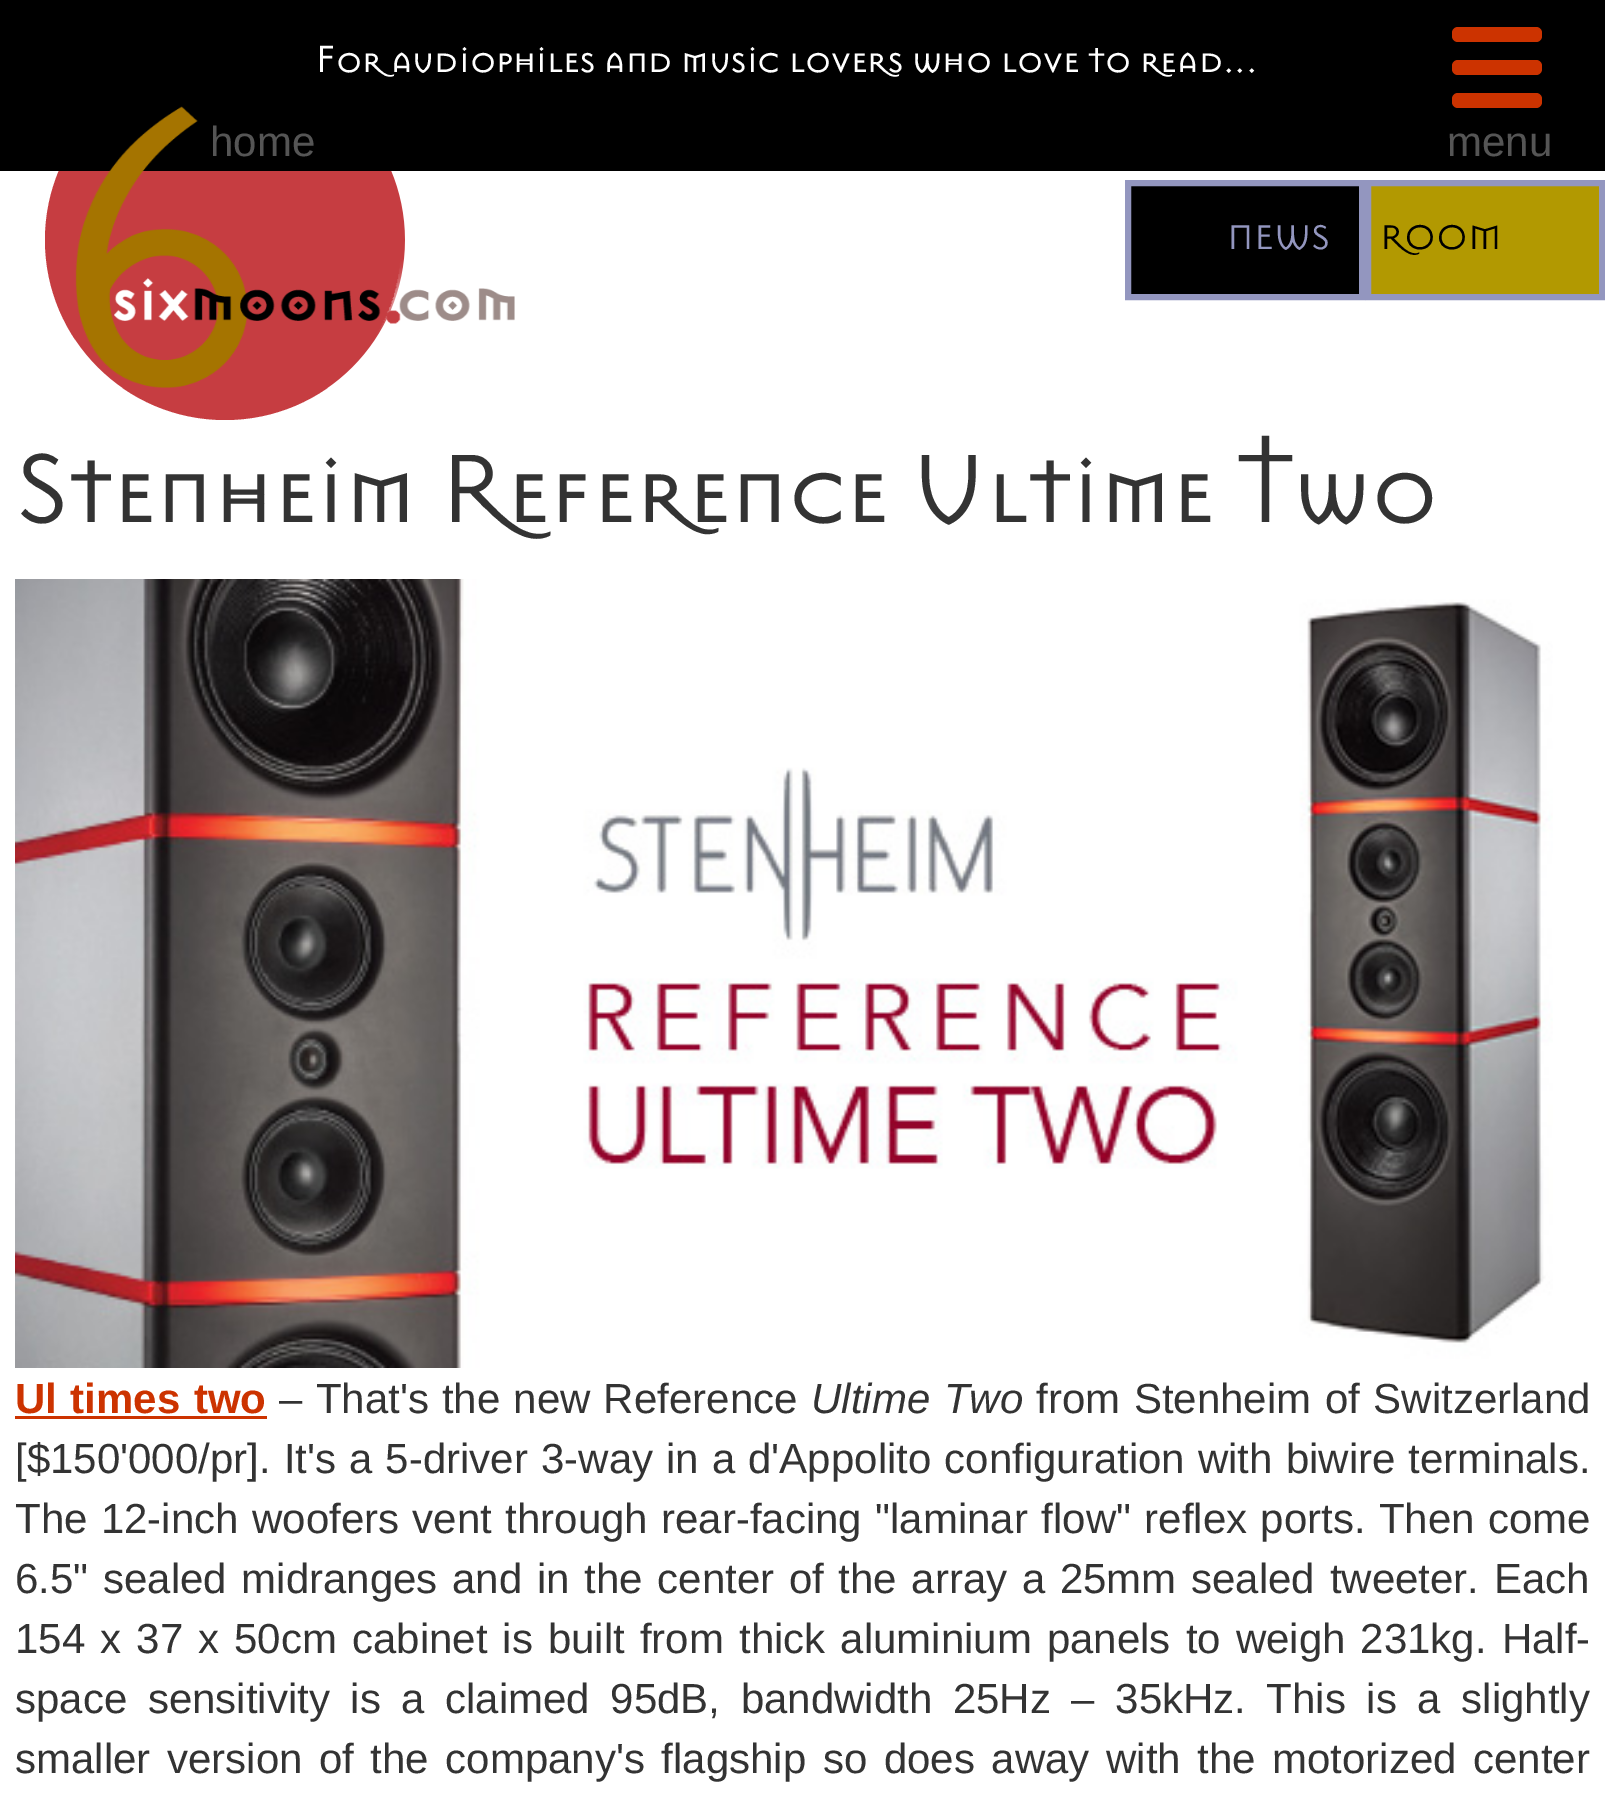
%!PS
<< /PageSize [1605 1794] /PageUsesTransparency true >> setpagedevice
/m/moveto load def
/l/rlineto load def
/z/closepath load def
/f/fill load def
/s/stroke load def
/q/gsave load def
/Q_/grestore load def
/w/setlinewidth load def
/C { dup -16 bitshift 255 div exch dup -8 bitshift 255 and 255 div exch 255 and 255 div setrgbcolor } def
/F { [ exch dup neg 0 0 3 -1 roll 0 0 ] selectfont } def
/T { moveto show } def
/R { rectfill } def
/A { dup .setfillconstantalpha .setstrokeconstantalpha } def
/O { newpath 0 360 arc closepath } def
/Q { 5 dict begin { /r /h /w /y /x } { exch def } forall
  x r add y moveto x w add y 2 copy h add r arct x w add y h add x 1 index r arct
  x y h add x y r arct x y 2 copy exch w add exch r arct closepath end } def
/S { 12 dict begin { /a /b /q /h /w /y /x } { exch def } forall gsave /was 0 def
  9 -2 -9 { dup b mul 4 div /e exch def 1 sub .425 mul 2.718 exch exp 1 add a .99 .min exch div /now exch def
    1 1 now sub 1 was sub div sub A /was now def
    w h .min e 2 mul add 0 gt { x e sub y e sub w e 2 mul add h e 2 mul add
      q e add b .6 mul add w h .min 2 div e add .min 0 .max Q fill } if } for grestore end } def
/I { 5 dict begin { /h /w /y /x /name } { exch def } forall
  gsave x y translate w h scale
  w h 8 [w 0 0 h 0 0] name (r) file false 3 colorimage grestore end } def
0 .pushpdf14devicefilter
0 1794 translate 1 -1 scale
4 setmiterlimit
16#FFFFFF C
0 0 1605 1794 R
(2.rgb) 15 579 1538 789 I
6 21 438 438 219 49.5 1 S
16#C63D41 C
225 240 180 O f
16#000000 C
0 0 1605 171 R
/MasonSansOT-Regular 42 F
16#FFFFFF C
(For audiophiles and music lovers who love to read...) 315 72 T
(1.rgb) 75 106 440 282 I
/LiberationSans-Regular 42 F
16#555555 C
(home) 210 156 T
16#CC3300 C
1452 27 90 15 6 Q f
1452 60 90 15 6 Q f
1452 93 90 15 6 Q f
16#555555 C
(menu) 1447 156 T
16#000000 C
1128 183 m 234 0 l 0 114 l -234 0 l z q f Q_
16#9396BF C
6 w
s
/MasonSansOT-Regular 38 F
(NEWS) 1227 249 T
16#B29901 C
1368 183 m 234 0 l 0 114 l -234 0 l z q f Q_
16#9396BF C
s
16#000000 C
(ROOM) 1380 249 T
/MasonSansOT-Regular 108 F
16#333333 C
(Stenheim Reference Ultime Two) 15 522 T
/LiberationSans-Bold 42 F
16#CC3300 C
15 1413 m 1.75 0 32 (Ul times two) widthshow
15 1416 252 3 R
/LiberationSans-Regular 42 F
16#333333 C
279 1413 m 1.5 0 32 (– That's the new Reference) widthshow
/LiberationSans-Italic 42 F
811 1413 m 2 0 32 (Ultime Two) widthshow
/LiberationSans-Regular 42 F
1036 1413 m 2 0 32 (from Stenheim of Switzerland) widthshow
15 1473 m 1.4 0 32 ([$150'000/pr]. It's a 5-driver 3-way in a d'Appolito configuration with biwire terminals.) widthshow
15 1533 m 1.75 0 32 (The 12-inch woofers vent through rear-facing "laminar flow" reflex ports. Then come) widthshow
15 1593 m 3 0 32 (6.5" sealed midranges and in the center of the array a 25mm sealed tweeter. Each) widthshow
15 1653 m 3.4 0 32 (154 x 37 x 50cm cabinet is built from thick aluminium panels to weigh 231kg. Half-) widthshow
15 1713 m 8.9 0 32 (space sensitivity is a claimed 95dB, bandwidth 25Hz – 35kHz. This is a slightly) widthshow
15 1773 m 4.9 0 32 (smaller version of the company's flagship so does away with the motorized center) widthshow
.poppdf14devicefilter showpage
